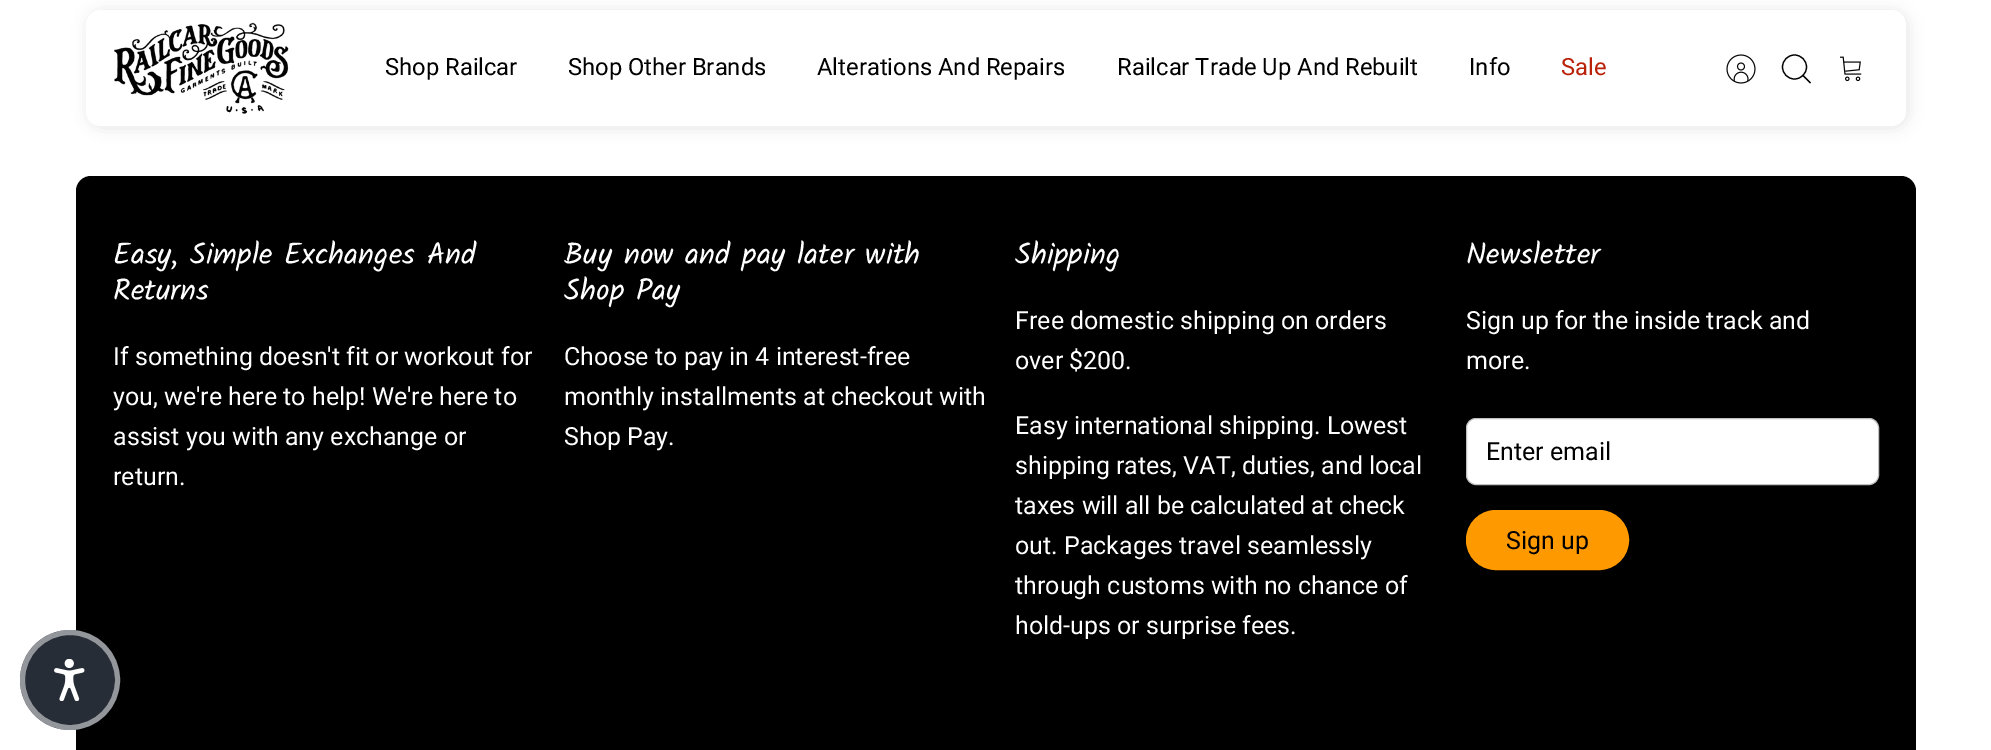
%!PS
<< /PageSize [1991 750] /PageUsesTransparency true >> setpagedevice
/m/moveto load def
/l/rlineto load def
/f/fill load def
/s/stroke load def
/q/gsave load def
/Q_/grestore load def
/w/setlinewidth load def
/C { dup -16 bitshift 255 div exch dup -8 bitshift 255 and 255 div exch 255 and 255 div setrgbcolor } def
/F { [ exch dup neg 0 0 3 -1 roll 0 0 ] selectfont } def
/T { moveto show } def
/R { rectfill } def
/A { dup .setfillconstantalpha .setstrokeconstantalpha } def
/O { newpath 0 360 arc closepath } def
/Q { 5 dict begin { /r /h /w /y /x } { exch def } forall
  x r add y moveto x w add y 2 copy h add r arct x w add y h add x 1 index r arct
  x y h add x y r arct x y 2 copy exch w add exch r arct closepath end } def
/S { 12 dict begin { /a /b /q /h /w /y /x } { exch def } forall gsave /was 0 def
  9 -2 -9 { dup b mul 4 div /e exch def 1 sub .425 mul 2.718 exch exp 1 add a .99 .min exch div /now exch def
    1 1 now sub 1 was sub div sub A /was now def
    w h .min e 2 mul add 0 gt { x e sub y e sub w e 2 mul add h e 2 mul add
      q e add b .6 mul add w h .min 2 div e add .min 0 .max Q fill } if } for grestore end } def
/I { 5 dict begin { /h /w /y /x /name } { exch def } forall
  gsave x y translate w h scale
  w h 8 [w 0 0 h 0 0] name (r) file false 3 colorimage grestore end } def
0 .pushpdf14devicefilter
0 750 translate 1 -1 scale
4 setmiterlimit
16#FFFFFF C
0 0 1991 750 R
16#000000 C
88 11 1820 117 15 7.5 .1 S
16#FFFFFF C
86 10 1820 116 15 Q f
(1.rgb) 114 22 175 92 I
/Roboto-Regular 23.75 F
16#000000 C
(Shop Railcar) 385 75 T
(Shop Other Brands) 568 75 T
(Alterations And Repairs) 817 75 T
(Railcar Trade Up And Rebuilt) 1117 75 T
(Info) 1469 75 T
16#BA2109 C
(Sale) 1561 75 T
(2.rgb) 1726 54 30 30 I
16#000000 C
1.2 w
1794.5 67 12 O s
2 setlinecap
1803 75.5 m 7 7 l s
(3.rgb) 1840 56 22 26 I
76 176 1840 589 15 Q f
/Kalam-Regular 30 F
16#FFFFFF C
(Easy, Simple Exchanges And) 113 264 T
(Returns) 113 300 T
/Roboto-Regular 25 F
(If something doesn't fit or workout for) 113 365 T
(you, we're here to help! We're here to) 113 405 T
(assist you with any exchange or) 113 445 T
(return.) 113 485 T
/Kalam-Regular 30 F
(Buy now and pay later with) 564 264 T
(Shop Pay) 564 300 T
/Roboto-Regular 25 F
(Choose to pay in 4 interest-free) 564 365 T
(monthly installments at checkout with) 564 405 T
(Shop Pay.) 564 445 T
/Kalam-Regular 30 F
(Shipping) 1015 264 T
/Roboto-Regular 25 F
(Free domestic shipping on orders) 1015 329 T
(over $200.) 1015 369 T
(Easy international shipping. Lowest) 1015 434 T
(shipping rates, VAT, duties, and local) 1015 474 T
(taxes will all be calculated at check) 1015 514 T
(out. Packages travel seamlessly) 1015 554 T
(through customs with no chance of) 1015 594 T
(hold-ups or surprise fees.) 1015 634 T
/Kalam-Regular 30 F
(Newsletter) 1466 264 T
/Roboto-Regular 25 F
(Sign up for the inside track and) 1466 329 T
(more.) 1466 369 T
1466.5 418.5 412 66 9.5 Q q f Q_
16#BFBFBF C
1 w
0 setlinecap
s
16#000000 C
(Enter email) 1486 460 T
16#FF9900 C
1466.5 510.5 162 59 29.5 Q q f Q_
s
16#000000 C
(Sign up) 1506 549 T
16#272D36 C
70 680 50 O f
0.5 A
16#FFFFFF C
5 w
70 680 47.5 O s
1 A
(4.rgb) 54 659 31 42 I
.poppdf14devicefilter showpage
